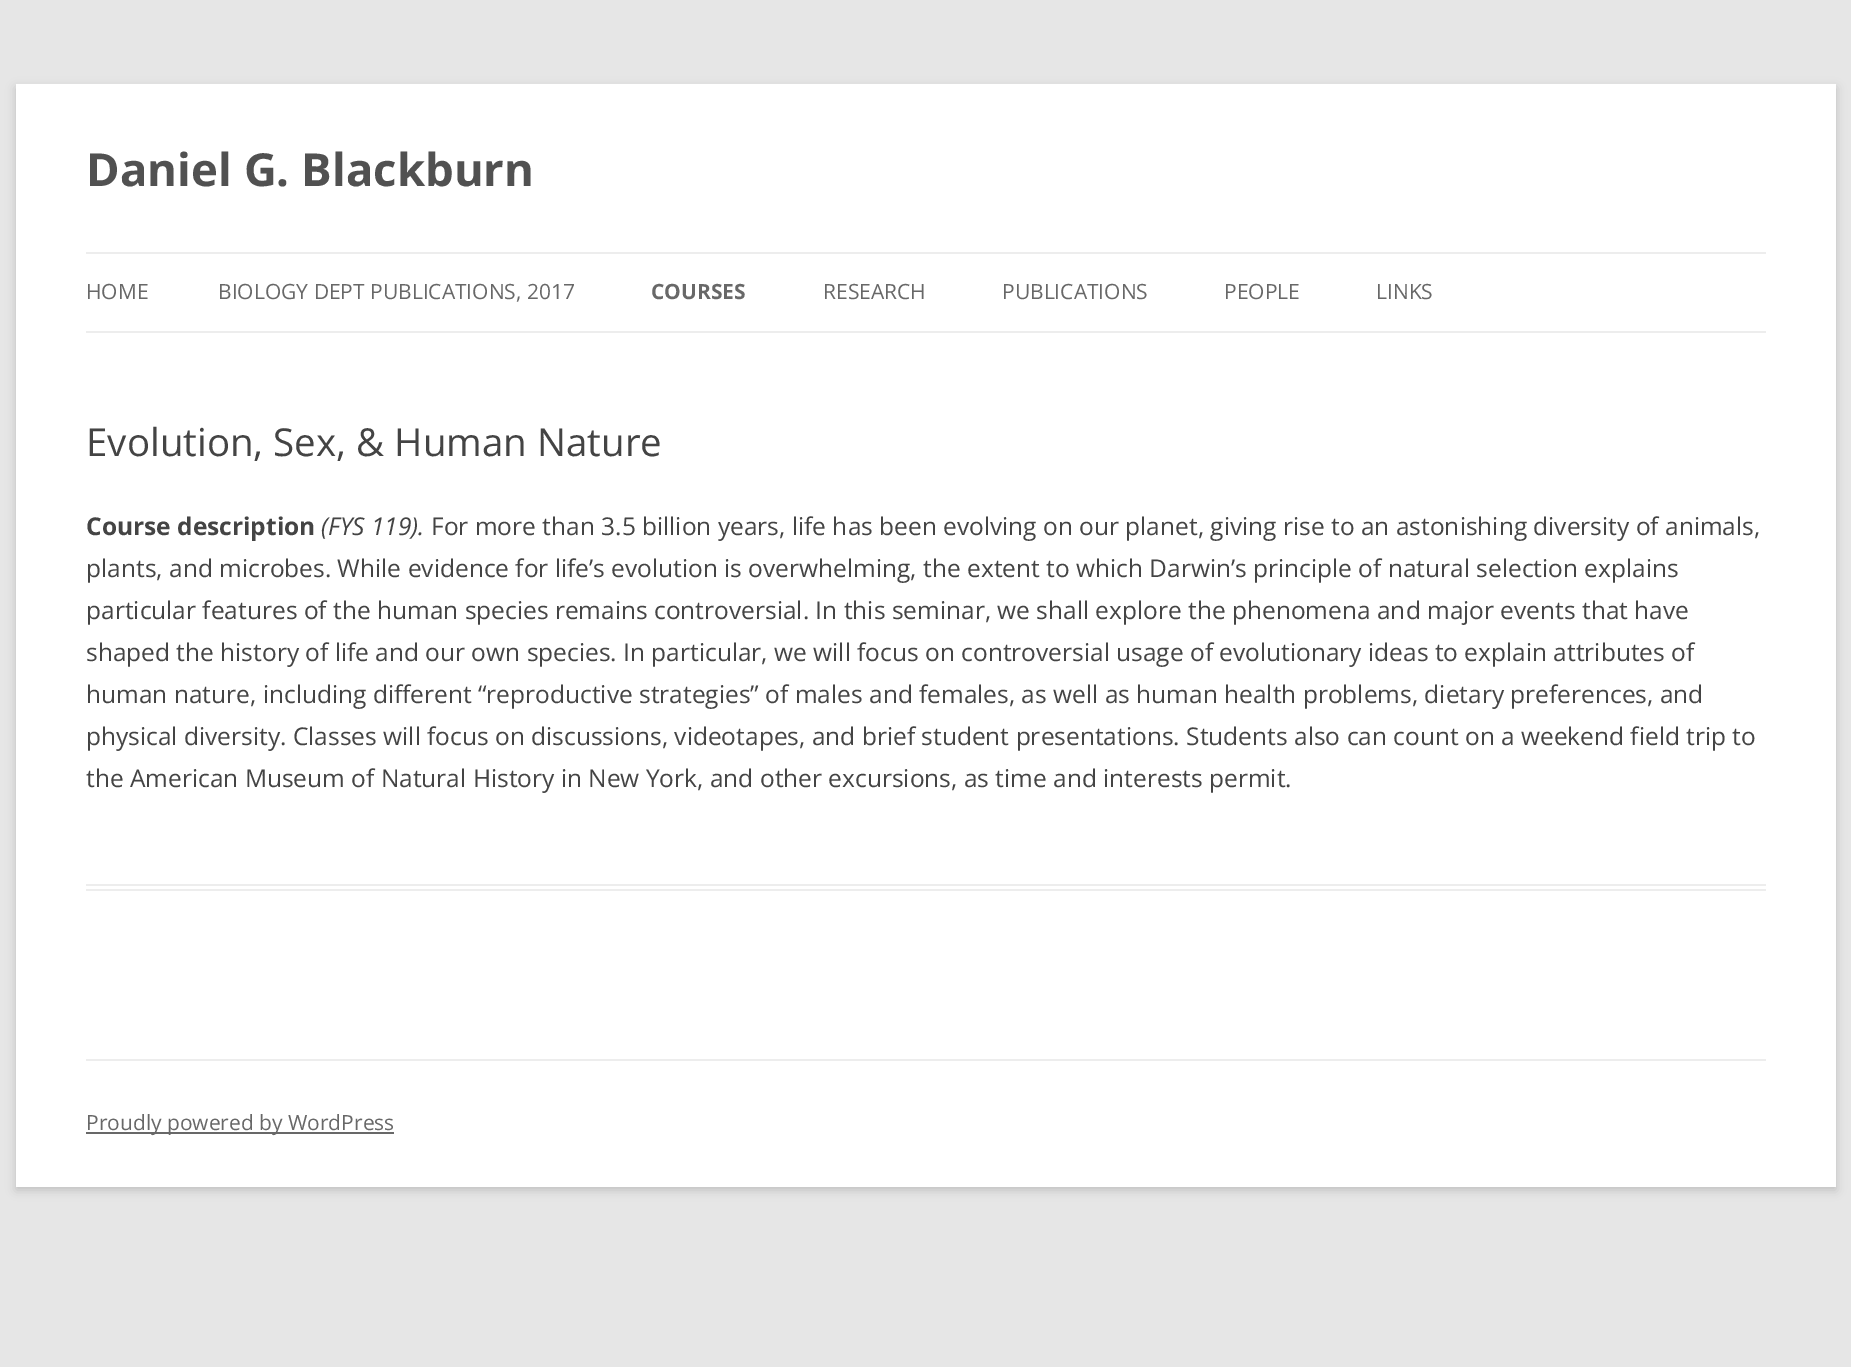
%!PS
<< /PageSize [1851 1367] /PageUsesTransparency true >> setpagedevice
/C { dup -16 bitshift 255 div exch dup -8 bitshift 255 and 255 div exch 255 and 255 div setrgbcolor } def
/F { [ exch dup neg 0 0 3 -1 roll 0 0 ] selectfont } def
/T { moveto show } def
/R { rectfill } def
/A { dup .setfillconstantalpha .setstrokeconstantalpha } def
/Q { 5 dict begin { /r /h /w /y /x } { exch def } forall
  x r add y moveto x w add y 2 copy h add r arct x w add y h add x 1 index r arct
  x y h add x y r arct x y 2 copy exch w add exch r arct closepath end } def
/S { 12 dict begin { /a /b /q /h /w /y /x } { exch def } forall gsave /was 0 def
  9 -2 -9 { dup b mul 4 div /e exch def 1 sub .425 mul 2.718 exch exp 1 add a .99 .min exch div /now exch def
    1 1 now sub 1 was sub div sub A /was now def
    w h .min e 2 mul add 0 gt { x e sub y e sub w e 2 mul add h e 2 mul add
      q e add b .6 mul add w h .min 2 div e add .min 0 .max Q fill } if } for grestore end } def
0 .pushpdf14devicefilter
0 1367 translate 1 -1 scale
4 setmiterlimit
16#E6E6E6 C
0 0 1851 1367 R
16#646464 C
16 88 1820 1102 0 5 .3 S
16#FFFFFF C
16 84 1820 1103 R
/OpenSans-Bold 45.5 F
16#515151 C
(Daniel G. Blackburn) 86 186 T
16#EDEDED C
86 252 1680 2 R
86 331 1680 2 R
/OpenSans-Regular 21 F
16#686868 C
(HOME) 86 299 T
(BIOLOGY DEPT PUBLICATIONS, 2017) 218 299 T
/OpenSans-Bold 21 F
(COURSES) 651 299 T
/OpenSans-Regular 21 F
(RESEARCH) 823 299 T
(PUBLICATIONS) 1002 299 T
(PEOPLE) 1224 299 T
(LINKS) 1376 299 T
16#EDEDED C
86 884 1680 2 R
86 889 1680 2 R
/OpenSans-Regular 38.5 F
16#444444 C
(Evolution, Sex, & Human Nature) 86 456 T
/OpenSans-Bold 24.5 F
(Course description) 86 535 T
/OpenSans-Italic 24.5 F
(\(FYS 119\).) 321 535 T
/OpenSans-Regular 24.5 F
(For more than 3.5 billion years, life has been evolving on our planet, giving rise to an astonishing diversity of animals,) 431 535 T
(plants, and microbes. While evidence for life’s evolution is overwhelming, the extent to which Darwin’s principle of natural selection explains) 86 577 T
(particular features of the human species remains controversial. In this seminar, we shall explore the phenomena and major events that have) 86 619 T
(shaped the history of life and our own species. In particular, we will focus on controversial usage of evolutionary ideas to explain attributes of) 86 661 T
(human nature, including different “reproductive strategies” of males and females, as well as human health problems, dietary preferences, and) 86 703 T
(physical diversity. Classes will focus on discussions, videotapes, and brief student presentations. Students also can count on a weekend field trip to) 86 745 T
(the American Museum of Natural History in New York, and other excursions, as time and interests permit.) 86 787 T
16#EDEDED C
86 1059 1680 2 R
16#686868 C
86 1132 308 2 R
/OpenSans-Regular 21 F
(Proudly powered by WordPress) 86 1130 T
.poppdf14devicefilter showpage
